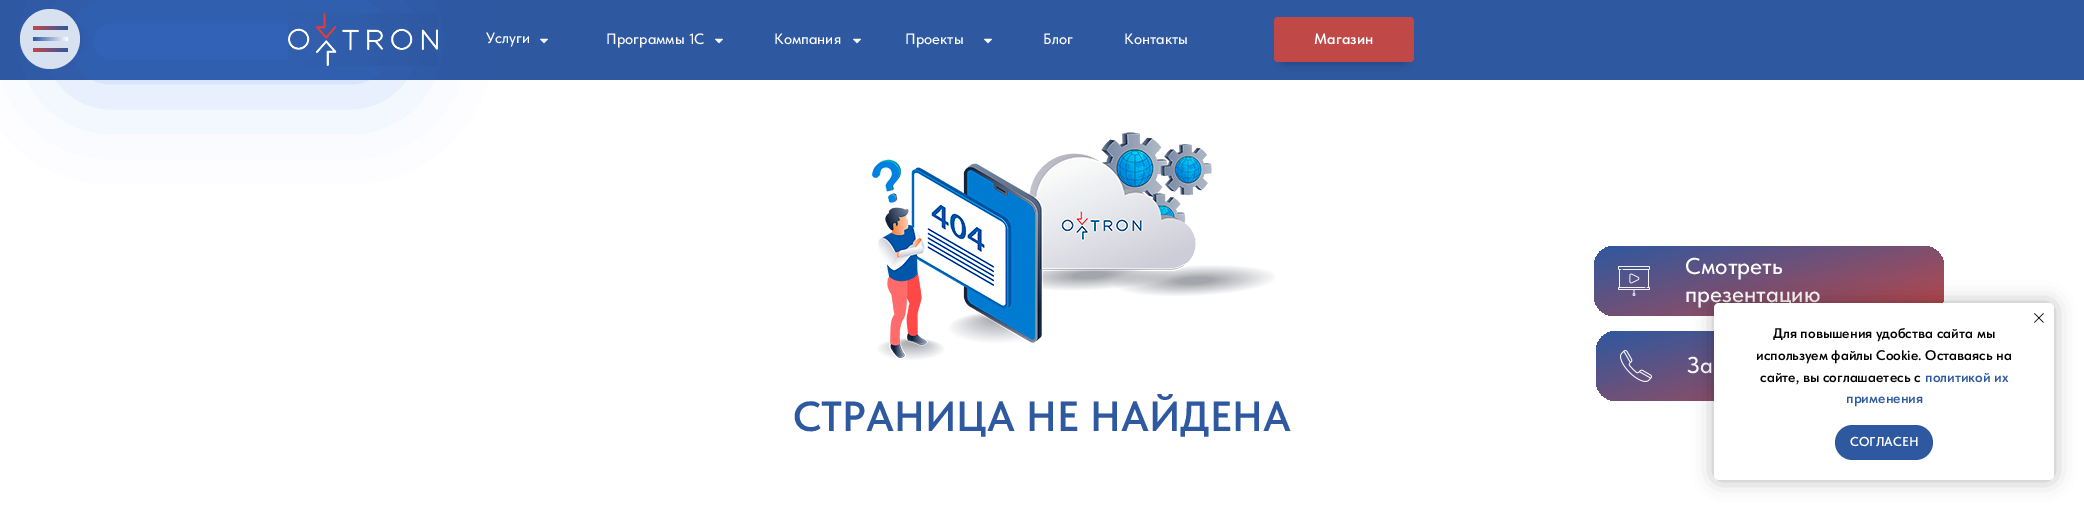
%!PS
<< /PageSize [2084 510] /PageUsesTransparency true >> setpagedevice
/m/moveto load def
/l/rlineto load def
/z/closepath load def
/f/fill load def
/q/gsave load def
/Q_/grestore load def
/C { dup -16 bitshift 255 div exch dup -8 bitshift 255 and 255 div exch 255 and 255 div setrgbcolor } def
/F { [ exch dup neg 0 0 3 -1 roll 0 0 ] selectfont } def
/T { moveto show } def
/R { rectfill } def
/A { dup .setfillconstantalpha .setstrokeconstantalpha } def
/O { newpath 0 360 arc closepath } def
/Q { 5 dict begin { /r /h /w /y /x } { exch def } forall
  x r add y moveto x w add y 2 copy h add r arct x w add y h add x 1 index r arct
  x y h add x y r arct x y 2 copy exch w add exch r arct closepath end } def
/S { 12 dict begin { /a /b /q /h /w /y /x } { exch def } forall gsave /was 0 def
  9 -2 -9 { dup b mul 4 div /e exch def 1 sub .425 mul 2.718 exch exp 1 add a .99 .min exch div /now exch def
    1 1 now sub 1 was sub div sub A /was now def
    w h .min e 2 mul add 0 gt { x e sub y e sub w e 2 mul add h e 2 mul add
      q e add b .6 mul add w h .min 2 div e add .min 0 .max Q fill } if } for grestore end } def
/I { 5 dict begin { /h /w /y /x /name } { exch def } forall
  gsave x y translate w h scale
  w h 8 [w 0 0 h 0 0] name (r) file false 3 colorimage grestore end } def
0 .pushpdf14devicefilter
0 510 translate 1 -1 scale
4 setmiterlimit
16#FFFFFF C
0 0 2084 510 R
16#2E58A0 C
0 0 2084 80 R
16#000000 C
40 19 40 40 20 5 .2 S
16#3E7FF0 C
81 11 300 61 30.5 50 .4 S
16#D8E1F0 C
50 39 30 O f
q 33 26 m 35 0 l 0 4 l -35 0 l z clip newpath
<< /ShadingType 2 /ColorSpace /DeviceRGB /Coords [33 28 68 28] /Extend [true true] /Function << /FunctionType 2 /Domain [0 1] /C0 [.753 .282 .278] /C1 [.18 .345 .627] /N 1 >> >> shfill Q_
q 33 37 m 35 0 l 0 4 l -35 0 l z clip newpath
<< /ShadingType 2 /ColorSpace /DeviceRGB /Coords [33 39 68 39] /Extend [true true] /Function << /FunctionType 2 /Domain [0 1] /C0 [.18 .345 .627] /C1 [1 1 1] /N 1 >> >> shfill Q_
q 33 48 m 35 0 l 0 4 l -35 0 l z clip newpath
<< /ShadingType 2 /ColorSpace /DeviceRGB /Coords [33 50 68 50] /Extend [true true] /Function << /FunctionType 2 /Domain [0 1] /C0 [.753 .282 .278] /C1 [.18 .345 .627] /N 1 >> >> shfill Q_
(1.rgb) 288 13 150 53 I
/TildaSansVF-Medium 15 F
16#FFFFFF C
(Услуги) 486 43 T
(2.rgb) 540 38 8 6 I
(Программы 1С) 606 44 T
(2.rgb) 715 38 8 6 I
(Компания) 774 44 T
(2.rgb) 853 38 8 6 I
(Проекты) 905 44 T
(2.rgb) 984 38 8 6 I
(Блог) 1043 44 T
(Контакты) 1124 44 T
16#000000 C
1284 37 120 25 0 5 .3 S
16#C04847 C
1274 17 140 45 4 Q f
/TildaSansVF-SemiBold 15 F
16#FFFFFF C
(Магазин) 1314 44 T
q 1594 246 350 70 20 Q clip newpath
<< /ShadingType 2 /ColorSpace /DeviceRGB /Coords [1789 357 1749 205] /Extend [true true] /Function << /FunctionType 2 /Domain [0 1] /C0 [.753 .282 .278] /C1 [.18 .345 .627] /N 1 >> >> shfill Q_
(3.rgb) 1618 266 32 30 I
/TildaSansVF-Medium 23 F
(Смотреть) 1685 274 T
(презентацию) 1685 302 T
q 1596 331 350 70 20 Q clip newpath
<< /ShadingType 2 /ColorSpace /DeviceRGB /Coords [1791 442 1751 290] /Extend [true true] /Function << /FunctionType 2 /Domain [0 1] /C0 [.753 .282 .278] /C1 [.18 .345 .627] /N 1 >> >> shfill Q_
(4.rgb) 1620 350 32 32 I
(За) 1687 373 T
(5.rgb) 872 132 403 228 I
/TildaSansVF-SemiBold 42 F
16#2E58A0 C
(СТРАНИЦА НЕ НАЙДЕНА) 793 431 T
16#000000 C
1714 303 340 177 5 10 .3 S
16#FFFFFF C
1714 303 340 177 5 Q f
(6.rgb) 2034 313 10 10 I
/TildaSansVF-SemiBold 14 F
16#000000 C
(Для повышения удобства сайта мы) 1773 338 T
(используем файлы Cookie. Оставаясь на) 1756 360 T
(сайте, вы соглашаетесь с) 1760 382 T
16#2E58A0 C
(политикой их) 1925 382 T
(применения) 1846 403 T
1835 425 98 35 17.5 Q f
/TildaSansVF-SemiBold 13 F
16#FFFFFF C
(СОГЛАСЕН) 1850 446 T
.poppdf14devicefilter showpage
